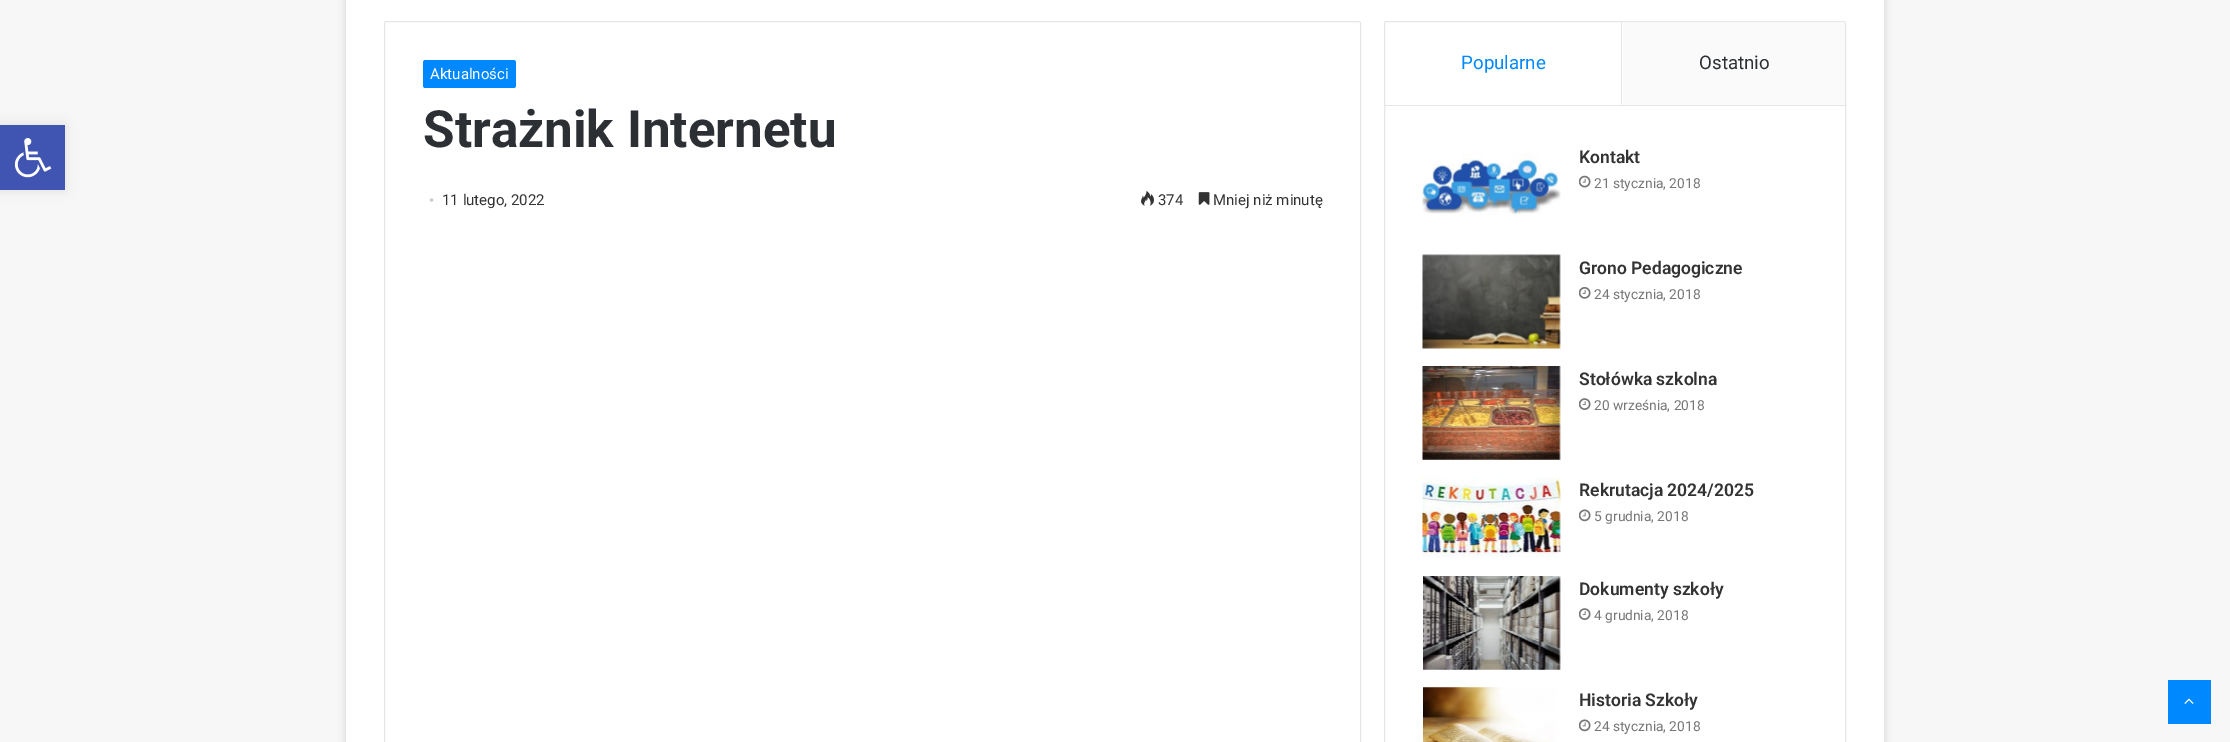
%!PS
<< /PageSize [2230 742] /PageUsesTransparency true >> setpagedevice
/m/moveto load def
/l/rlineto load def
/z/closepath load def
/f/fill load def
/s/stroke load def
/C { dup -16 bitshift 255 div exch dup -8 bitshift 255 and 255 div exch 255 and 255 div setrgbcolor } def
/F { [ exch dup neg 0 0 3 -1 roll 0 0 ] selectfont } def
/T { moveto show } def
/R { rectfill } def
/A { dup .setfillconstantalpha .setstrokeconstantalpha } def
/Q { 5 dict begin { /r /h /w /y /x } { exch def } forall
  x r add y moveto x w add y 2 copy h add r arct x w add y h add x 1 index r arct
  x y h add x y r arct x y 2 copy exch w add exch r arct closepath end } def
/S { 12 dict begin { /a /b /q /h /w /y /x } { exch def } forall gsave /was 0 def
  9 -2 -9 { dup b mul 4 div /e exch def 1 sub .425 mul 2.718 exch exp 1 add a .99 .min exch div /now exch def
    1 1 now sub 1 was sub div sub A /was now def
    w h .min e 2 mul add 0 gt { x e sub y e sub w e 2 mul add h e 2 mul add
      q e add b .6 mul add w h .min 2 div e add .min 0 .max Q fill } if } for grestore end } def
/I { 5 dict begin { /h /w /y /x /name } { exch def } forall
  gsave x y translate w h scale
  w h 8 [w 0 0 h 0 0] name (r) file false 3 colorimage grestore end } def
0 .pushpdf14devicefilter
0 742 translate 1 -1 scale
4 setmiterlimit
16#F7F7F7 C
0 0 2230 742 R
16#000000 C
0 125 65 65 0 6 .1 S
16#4054B2 C
0 125 65 65 R
(1.rgb) 14 138 38 40 I
16#ABABAB C
346 -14 1538 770 0 4.5 .5 S
16#FFFFFF C
346 0 1538 742 R
16#E6E6E6 C
384.5 21.5 976 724 2 Q s
16#0088FF C
423 60 93 28 2.5 Q f
/Roboto-Regular 15 F
16#FFFFFF C
(Aktualności) 430 79 T
/Roboto-Bold 51.25 F
16#2C2F34 C
(Strażnik Internetu) 423 147 T
/LiberationSerif-Regular 15 F
16#CCCCCC C
(•) 429 205 T
/Roboto-Regular 15 F
16#333333 C
(11 lutego, 2022) 442 205 T
(2.rgb) 1141 191 13 15 I
(374) 1158 205 T
(3.rgb) 1198 192 12 13 I
(Mniej niż minutę) 1213 205 T
16#E6E6E6 C
1384.5 21.5 461 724 2 Q s
1385 105 460 1 R
1622 22 m 0 83 l -1 -1 l 0 -82 l z f
/Roboto-Regular 18.75 F
16#0088FF C
(Popularne) 1461 69 T
16#FAFAFA C
1623 23 222 82 R
16#2C2F34 C
(Ostatnio) 1699 69 T
(4.rgb) 1422 153 139 62 I
/Roboto-SemiBold 17.5 F
16#333333 C
(Kontakt) 1579 163 T
(5.rgb) 1579 175 12 13 I
/Roboto-Regular 13.75 F
16#767676 C
(21 stycznia, 2018) 1594 188 T
(6.rgb) 1422 254 139 95 I
/Roboto-SemiBold 17.5 F
16#333333 C
(Grono Pedagogiczne) 1579 274 T
(7.rgb) 1579 287 12 12 I
/Roboto-Regular 13.75 F
16#767676 C
(24 stycznia, 2018) 1594 299 T
(8.rgb) 1422 366 139 94 I
/Roboto-SemiBold 17.5 F
16#333333 C
(Stołówka szkolna) 1579 385 T
(9.rgb) 1579 398 12 12 I
/Roboto-Regular 13.75 F
16#767676 C
(20 września, 2018) 1594 410 T
(10.rgb) 1422 477 139 81 I
/Roboto-SemiBold 17.5 F
16#333333 C
(Rekrutacja 2024/2025) 1579 496 T
(11.rgb) 1579 509 12 13 I
/Roboto-Regular 13.75 F
16#767676 C
(5 grudnia, 2018) 1594 521 T
(12.rgb) 1423 576 138 94 I
/Roboto-SemiBold 17.5 F
16#333333 C
(Dokumenty szkoły) 1579 595 T
(9.rgb) 1579 608 12 12 I
/Roboto-Regular 13.75 F
16#767676 C
(4 grudnia, 2018) 1594 620 T
(13.rgb) 1423 687 133 55 I
/Roboto-SemiBold 17.5 F
16#333333 C
(Historia Szkoły) 1579 706 T
(11.rgb) 1579 719 12 13 I
/Roboto-Regular 13.75 F
16#767676 C
(24 stycznia, 2018) 1594 731 T
16#0088FF C
2168 680 43 44 R
(14.rgb) 2184 698 10 6 I
.poppdf14devicefilter showpage
